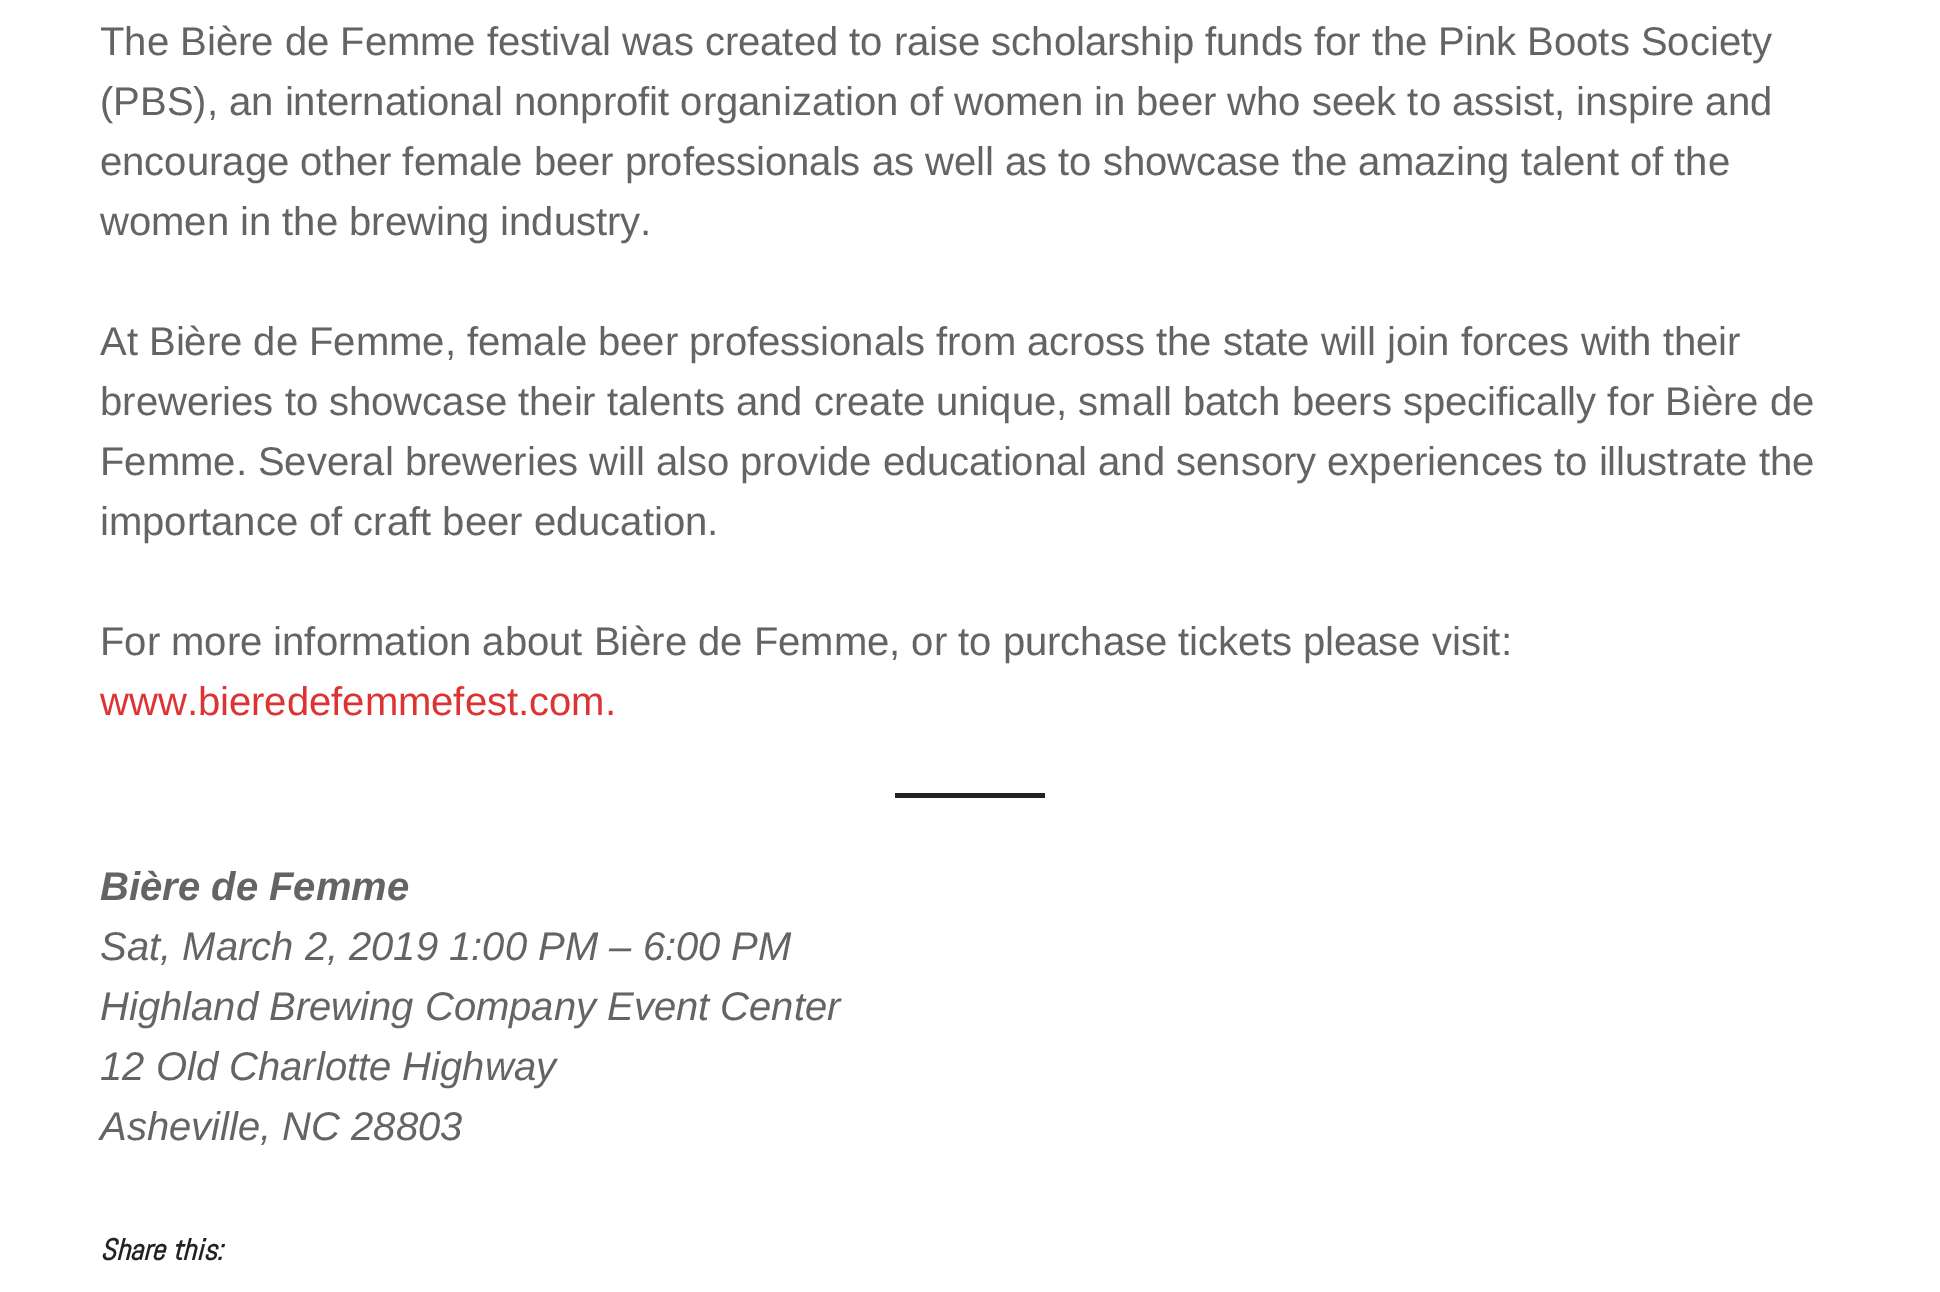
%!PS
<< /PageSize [1940 1292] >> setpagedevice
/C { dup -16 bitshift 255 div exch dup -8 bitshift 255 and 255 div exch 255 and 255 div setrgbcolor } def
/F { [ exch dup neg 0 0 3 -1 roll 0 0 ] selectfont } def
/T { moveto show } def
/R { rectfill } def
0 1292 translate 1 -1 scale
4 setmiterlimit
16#FFFFFF C
0 0 1940 1292 R
/LiberationSans-Regular 40 F
16#646464 C
(The Bière de Femme festival was created to raise scholarship funds for the Pink Boots Society) 100 55 T
(\(PBS\), an international nonprofit organization of women in beer who seek to assist, inspire and) 100 115 T
(encourage other female beer professionals as well as to showcase the amazing talent of the) 100 175 T
(women in the brewing industry.) 100 235 T
(At Bière de Femme, female beer professionals from across the state will join forces with their) 100 355 T
(breweries to showcase their talents and create unique, small batch beers specifically for Bière de) 100 415 T
(Femme. Several breweries will also provide educational and sensory experiences to illustrate the) 100 475 T
(importance of craft beer education.) 100 535 T
(For more information about Bière de Femme, or to purchase tickets please visit:) 100 655 T
16#DD3333 C
(www.bieredefemmefest.com.) 100 715 T
16#222222 C
895 793 150 5 R
/LiberationSans-BoldItalic 40 F
16#646464 C
(Bière de Femme) 100 900 T
/LiberationSans-Italic 40 F
(Sat, March 2, 2019 1:00 PM – 6:00 PM) 100 960 T
(Highland Brewing Company Event Center) 100 1020 T
(12 Old Charlotte Highway) 100 1080 T
(Asheville, NC 28803) 100 1140 T
/Abel-BoldItalic 30 F
16#222222 C
(Share this:) 100 1260 T
showpage
